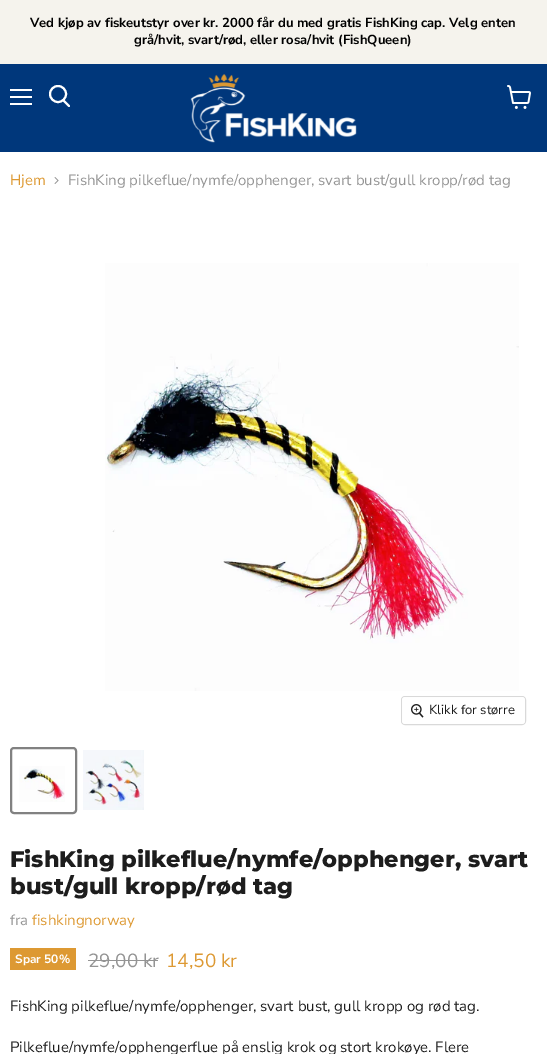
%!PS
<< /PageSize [547 1054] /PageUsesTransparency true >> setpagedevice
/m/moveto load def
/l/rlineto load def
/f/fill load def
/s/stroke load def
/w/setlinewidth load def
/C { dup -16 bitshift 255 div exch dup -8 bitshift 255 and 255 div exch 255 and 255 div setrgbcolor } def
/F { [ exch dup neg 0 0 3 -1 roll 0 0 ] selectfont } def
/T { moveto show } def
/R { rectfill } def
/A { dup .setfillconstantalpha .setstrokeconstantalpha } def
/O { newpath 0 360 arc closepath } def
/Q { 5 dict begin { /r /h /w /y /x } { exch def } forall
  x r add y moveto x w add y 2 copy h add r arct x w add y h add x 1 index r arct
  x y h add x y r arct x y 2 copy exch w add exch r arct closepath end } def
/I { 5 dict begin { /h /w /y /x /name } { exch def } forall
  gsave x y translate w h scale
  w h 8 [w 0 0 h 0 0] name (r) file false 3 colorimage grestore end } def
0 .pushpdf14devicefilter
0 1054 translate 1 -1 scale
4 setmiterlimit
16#FFFFFF C
0 0 547 1054 R
16#F5F3ED C
0 0 547 64 R
/NunitoSans-Bold 13.1 F
16#000000 C
(Ved kjøp av fiskeutstyr over kr. 2000 får du med gratis FishKing cap. Velg enten) 30 27 T
(grå/hvit, svart/rød, eller rosa/hvit \(FishQueen\)) 134 44 T
16#00377B C
0 64 547 88 R
16#FFFFFF C
10 89 22 2 R
10 96 22 2 R
10 103 22 2 R
2 w
1 setlinecap
69 106 m -5.5 -5.5 l s
0 setlinecap
58 94 8 O s
(1.rgb) 190 74 167 69 I
(2.rgb) 507 85 24 24 I
/NunitoSans-Regular 15 F
16#DD9933 C
(Hjem) 10 185 T
(3.rgb) 54 177 5 7 I
16#949494 C
(FishKing pilkeflue/nymfe/opphenger, svart bust/gull kropp/rød tag) 68 185 T
(4.rgb) 105 263 414 428 I
16#D9D9D9 C
1 w
401.5 696.5 124 28 3.5 Q s
0.9 A
16#FFFFFF C
402 697 123 27 3 Q f
1 A
(5.rgb) 411 704 13 14 I
/NunitoSans-Regular 13.1 F
16#1D1D1D C
(Klikk for større) 429 714 T
16#818181 C
2 w
11 748 65 65 3 Q s
(6.rgb) 19 766 46 36 I
(7.rgb) 83 750 61 60 I
/Montserrat-ExtraBold 22.5 F
16#1D1D1D C
(FishKing pilkeflue/nymfe/opphenger, svart) 10 867 T
(bust/gull kropp/rød tag) 10 894 T
/NunitoSans-Regular 15 F
16#949494 C
(fra) 10 925 T
16#DD9933 C
(fishkingnorway) 32 925 T
10 948 66 22 R
/NunitoSans-Bold 12 F
16#FFFFFF C
(Spar 50%) 15 963 T
/NunitoSans-Regular 19 F
16#949494 C
(29,00 kr) 88 967 T
88 960 70 1 R
16#DD9933 C
(14,50 kr) 166 967 T
/NunitoSans-Regular 15 F
16#1D1D1D C
(FishKing pilkeflue/nymfe/opphenger, svart bust, gull kropp og rød tag.) 10 1011 T
(Pilkeflue/nymfe/opphengerflue på enslig krok og stort krokøye. Flere) 10 1052 T
.poppdf14devicefilter showpage
